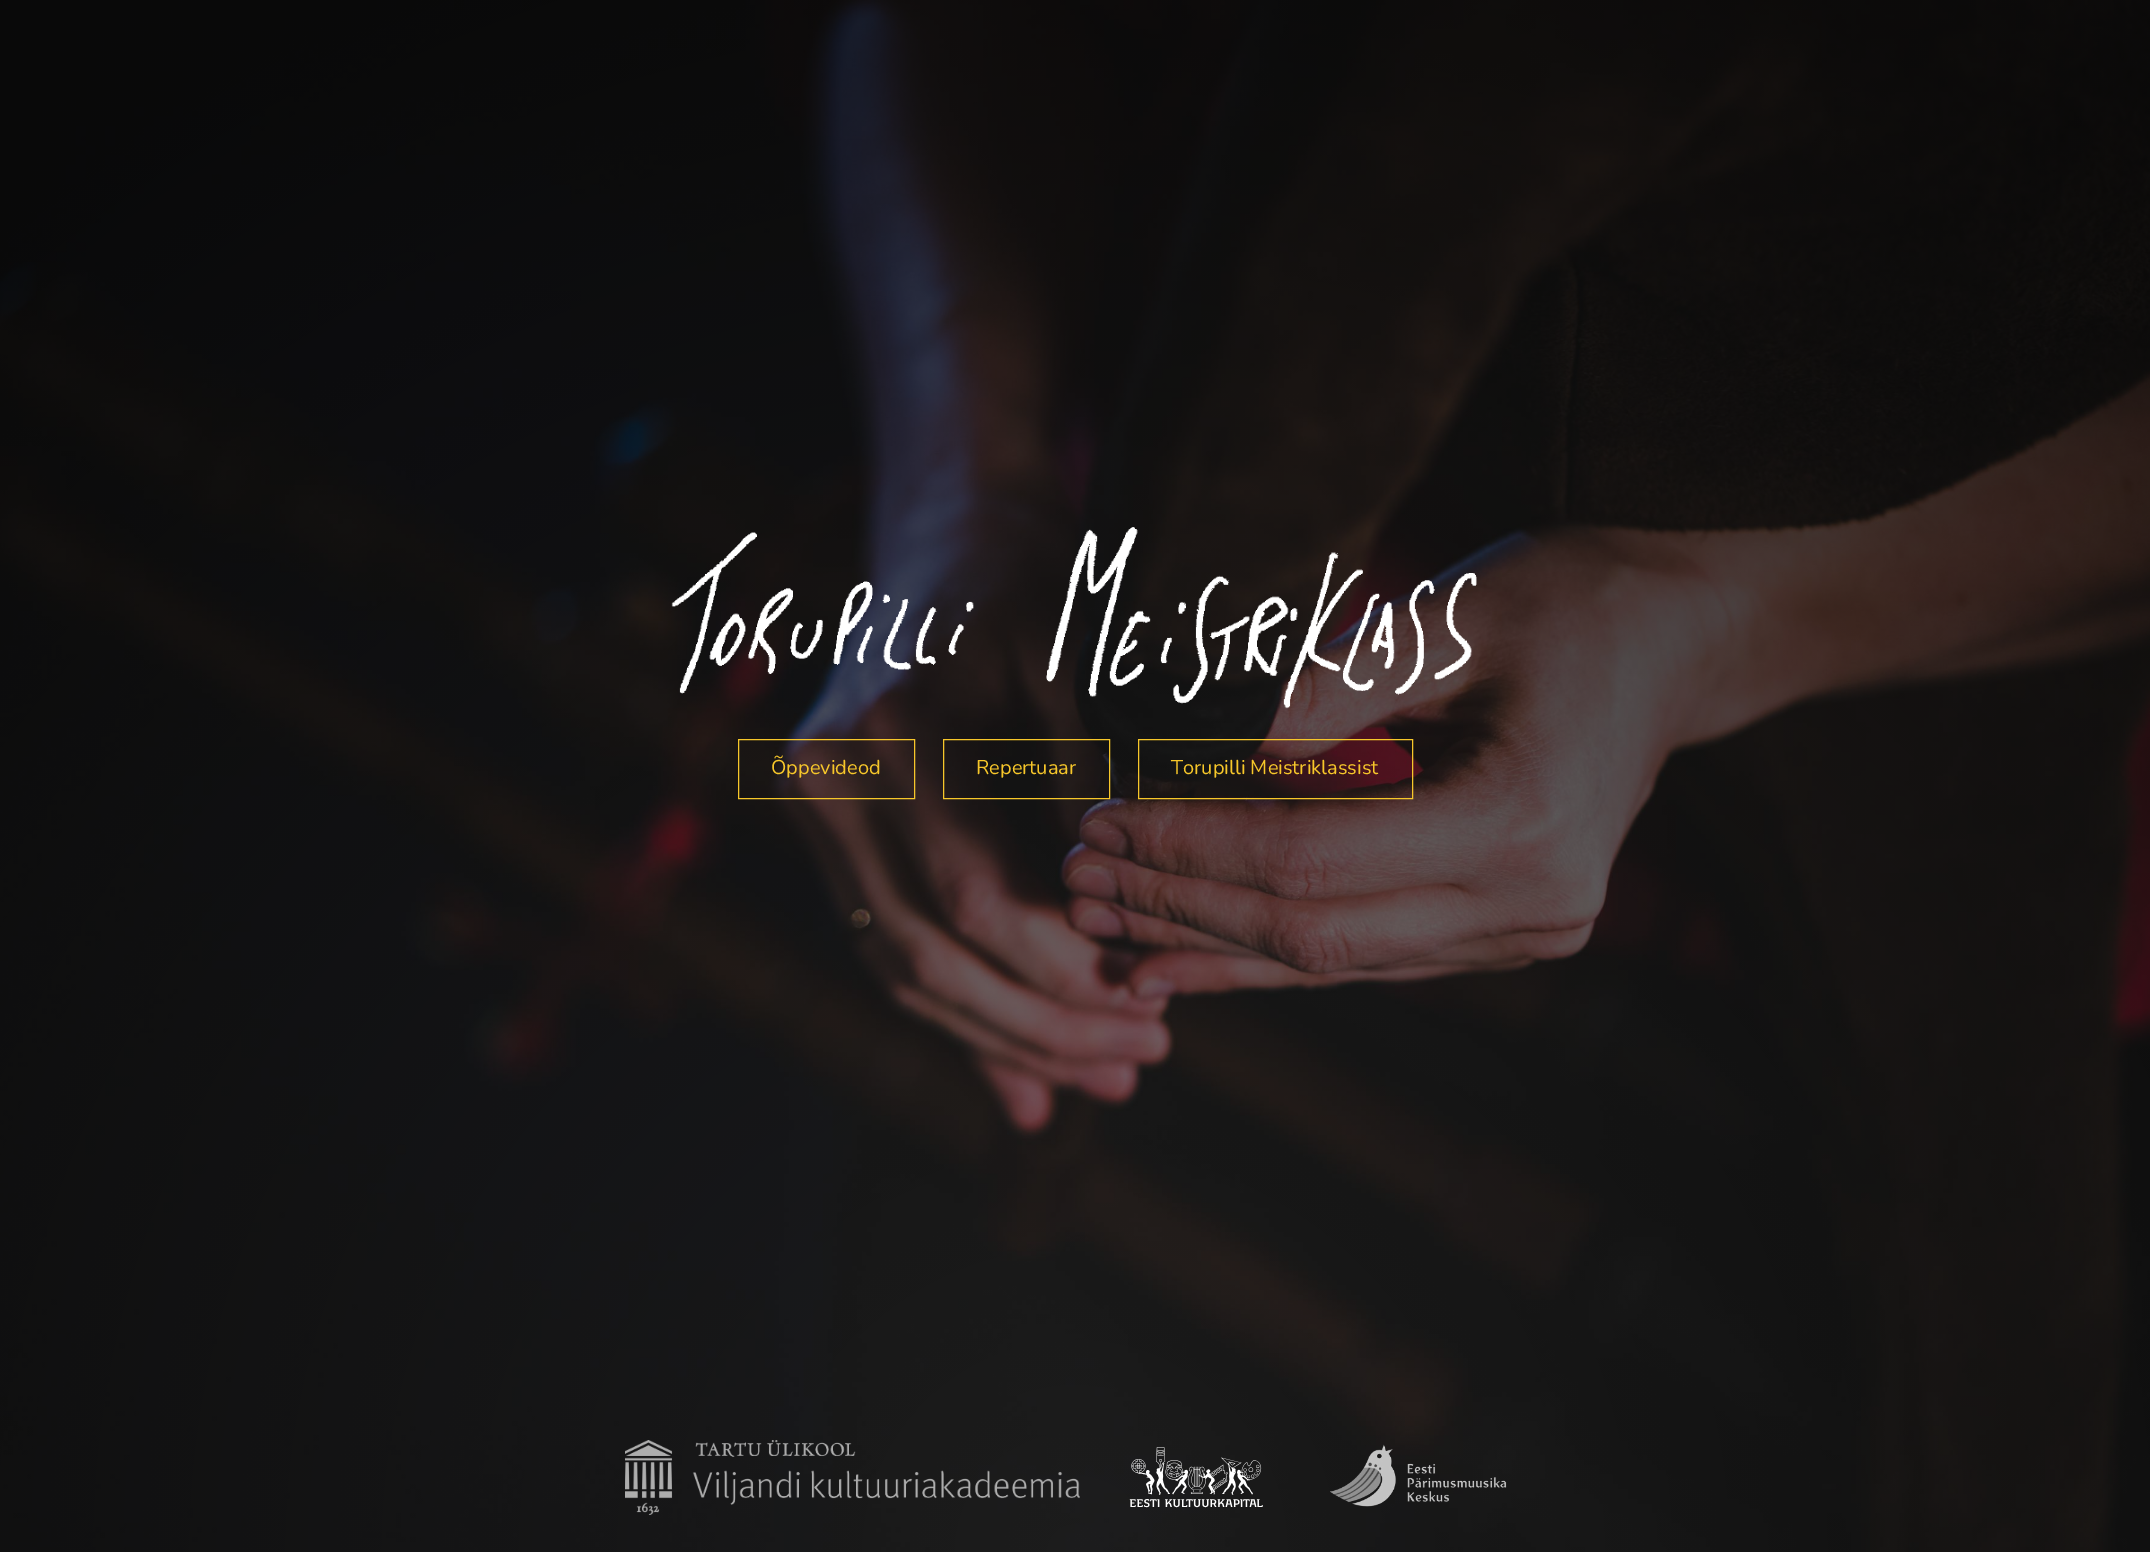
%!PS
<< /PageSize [2150 1552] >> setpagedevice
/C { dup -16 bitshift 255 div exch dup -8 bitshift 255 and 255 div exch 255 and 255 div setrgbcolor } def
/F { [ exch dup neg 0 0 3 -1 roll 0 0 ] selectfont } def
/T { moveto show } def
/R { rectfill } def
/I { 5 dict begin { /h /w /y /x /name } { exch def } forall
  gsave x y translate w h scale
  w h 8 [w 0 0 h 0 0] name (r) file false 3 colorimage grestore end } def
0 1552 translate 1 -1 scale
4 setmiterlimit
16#FFFFFF C
0 0 2150 1552 R
(1.rgb) 0 0 2150 1552 I
(2.rgb) 671 527 806 182 I
16#F7C72A C
738.5 739.5 176 59 rectstroke
/Nunito-Regular 20 F
(Õppevideod) 771 774 T
943.5 739.5 166 59 rectstroke
(Repertuaar) 976 774 T
1138.5 739.5 274 59 rectstroke
(Torupilli Meistriklassist) 1171 774 T
(3.rgb) 625 1440 455 75 I
(4.rgb) 1129 1447 134 61 I
(5.rgb) 1330 1444 177 63 I
showpage
